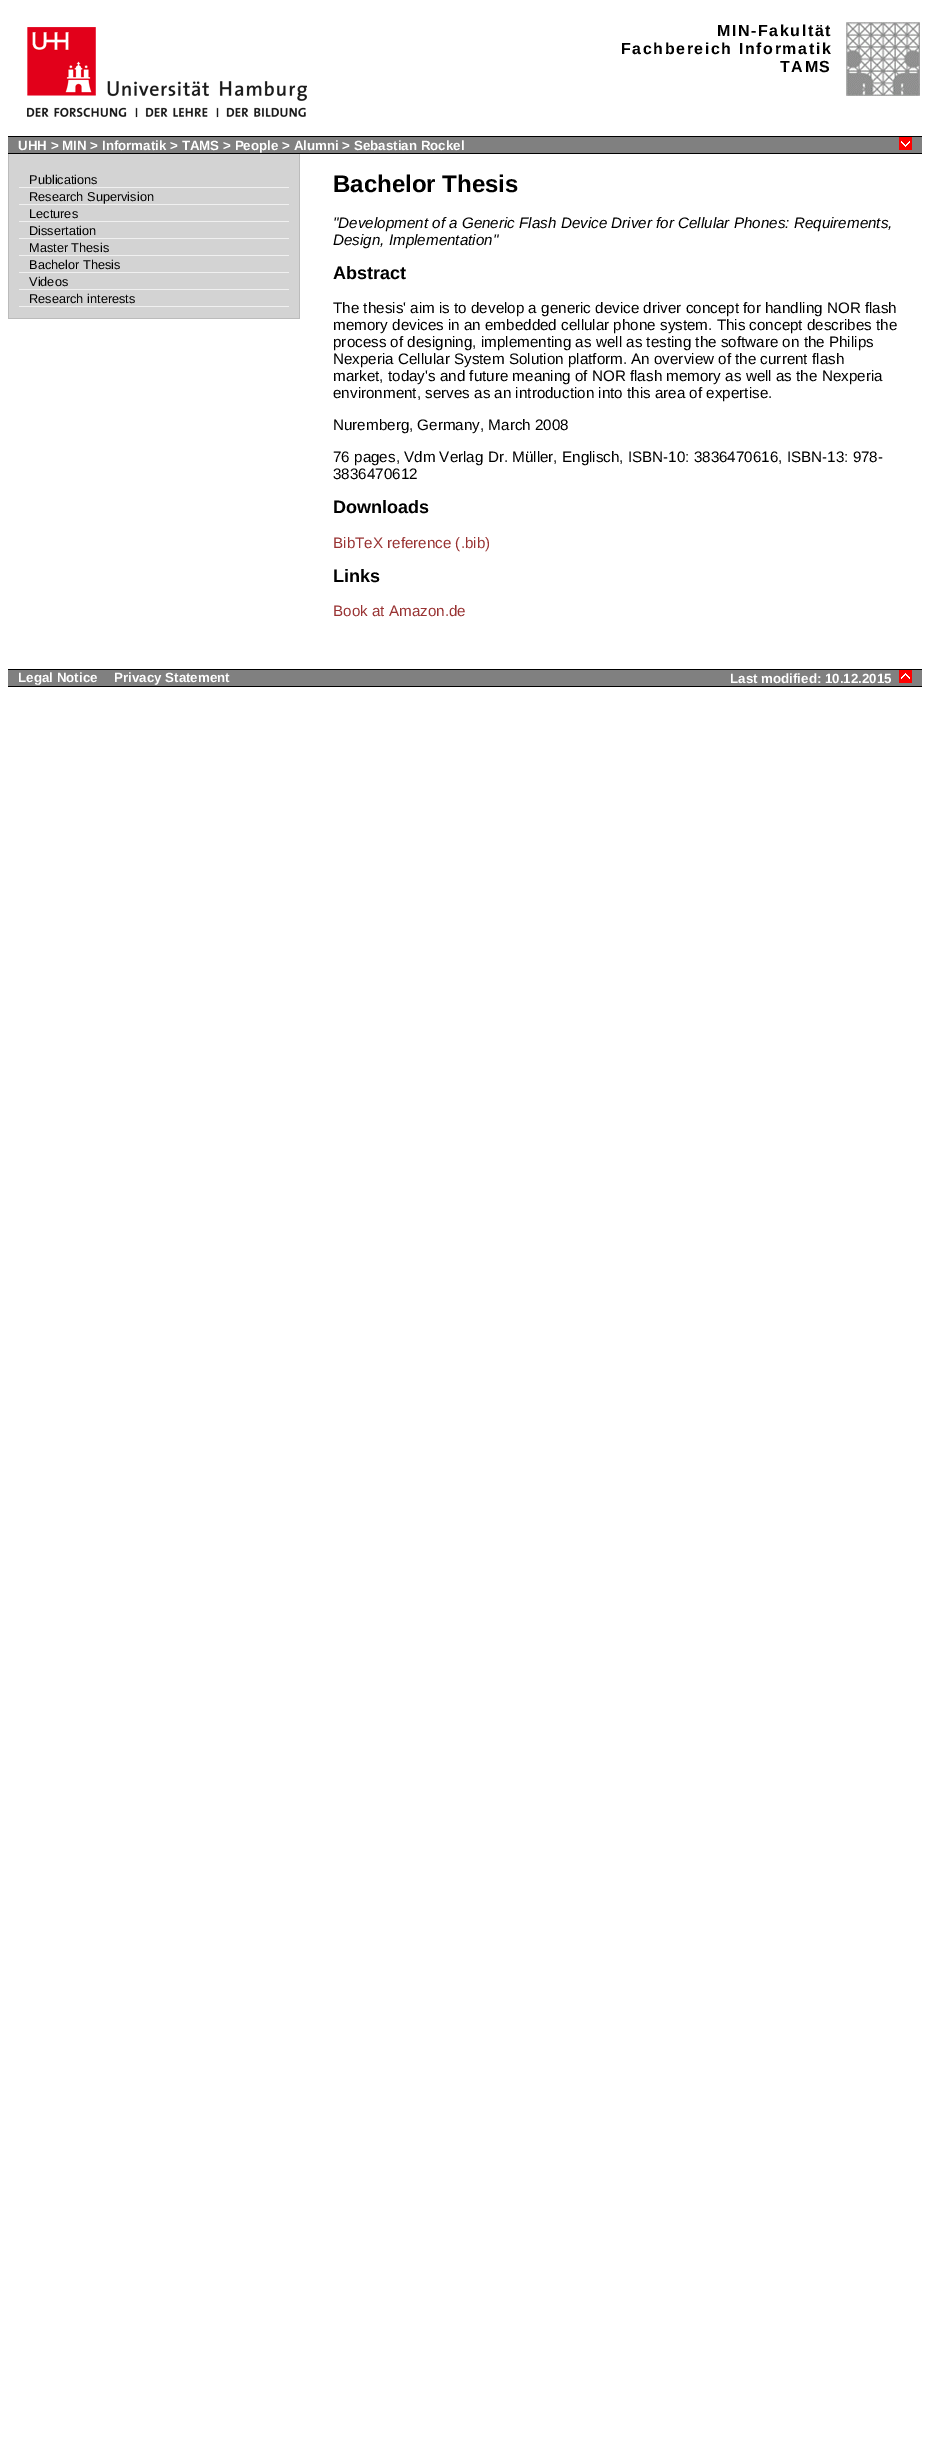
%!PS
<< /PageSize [930 2449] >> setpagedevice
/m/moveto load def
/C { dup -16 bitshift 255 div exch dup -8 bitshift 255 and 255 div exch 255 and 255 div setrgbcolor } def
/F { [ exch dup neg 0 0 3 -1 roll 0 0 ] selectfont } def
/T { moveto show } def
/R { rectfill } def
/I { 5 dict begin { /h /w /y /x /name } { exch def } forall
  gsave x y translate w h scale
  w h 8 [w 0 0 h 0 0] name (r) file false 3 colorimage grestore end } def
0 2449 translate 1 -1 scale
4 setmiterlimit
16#FFFFFF C
0 0 930 2449 R
(1.rgb) 27 27 280 91 I
/LiberationSans-Bold 16 F
16#000000 C
717 36 m 1.6 0 (MIN-Fakultät) ashow
621 54 m 1.6 0 (Fachbereich Informatik) ashow
780 72 m 1.6 0 (TAMS) ashow
(2.rgb) 846 22 74 74 I
16#808080 C
8 137 914 16 R
16#000000 C
8 136 914 1 R
8 153 914 1 R
/LiberationSans-Bold 13.35 F
16#FFFFFF C
(UHH > MIN > Informatik > TAMS > People > Alumni > Sebastian Rockel) 18 150 T
(3.rgb) 899 137 13 13 I
16#D3D3D3 C
9 154 290 164 R
16#BBBBBB C
299 154 1 165 R
8 318 292 1 R
8 154 1 165 R
16#F0F0F0 C
19 187 270 1 R
/LiberationSans-Regular 12.75 F
16#000000 C
(Publications) 29 184 T
16#F0F0F0 C
19 204 270 1 R
16#000000 C
(Research Supervision) 29 201 T
16#F0F0F0 C
19 221 270 1 R
16#000000 C
(Lectures) 29 218 T
16#F0F0F0 C
19 238 270 1 R
16#000000 C
(Dissertation) 29 235 T
16#F0F0F0 C
19 255 270 1 R
16#000000 C
(Master Thesis) 29 252 T
16#F0F0F0 C
19 272 270 1 R
16#000000 C
(Bachelor Thesis) 29 269 T
16#F0F0F0 C
19 289 270 1 R
16#000000 C
(Videos) 29 286 T
16#F0F0F0 C
19 306 270 1 R
16#000000 C
(Research interests) 29 303 T
/LiberationSans-Bold 24 F
(Bachelor Thesis) 333 192 T
/LiberationSans-Italic 15.2 F
("Development of a Generic Flash Device Driver for Cellular Phones: Requirements,) 333 228 T
(Design, Implementation") 333 245 T
/LiberationSans-Bold 18 F
(Abstract) 333 279 T
/LiberationSans-Regular 15.2 F
(The thesis' aim is to develop a generic device driver concept for handling NOR flash) 333 313 T
(memory devices in an embedded cellular phone system. This concept describes the) 333 330 T
(process of designing, implementing as well as testing the software on the Philips) 333 347 T
(Nexperia Cellular System Solution platform. An overview of the current flash) 333 364 T
(market, today's and future meaning of NOR flash memory as well as the Nexperia) 333 381 T
(environment, serves as an introduction into this area of expertise.) 333 398 T
(Nuremberg, Germany, March 2008) 333 430 T
(76 pages, Vdm Verlag Dr. Müller, Englisch, ISBN-10: 3836470616, ISBN-13: 978-) 333 462 T
(3836470612) 333 479 T
/LiberationSans-Bold 18 F
(Downloads) 333 513 T
/LiberationSans-Regular 15.2 F
16#993333 C
(BibTeX reference \(.bib\)) 333 548 T
/LiberationSans-Bold 18 F
16#000000 C
(Links) 333 582 T
/LiberationSans-Regular 15.2 F
16#993333 C
(Book at Amazon.de) 333 616 T
16#808080 C
8 670 914 16 R
16#000000 C
8 669 914 1 R
8 686 914 1 R
/LiberationSans-Bold 13.35 F
16#FFFFFF C
(Legal Notice) 18 682 T
(Privacy Statement) 114 682 T
(Last modified: 10.12.2015) 730 683 T
(4.rgb) 899 670 13 13 I
showpage
